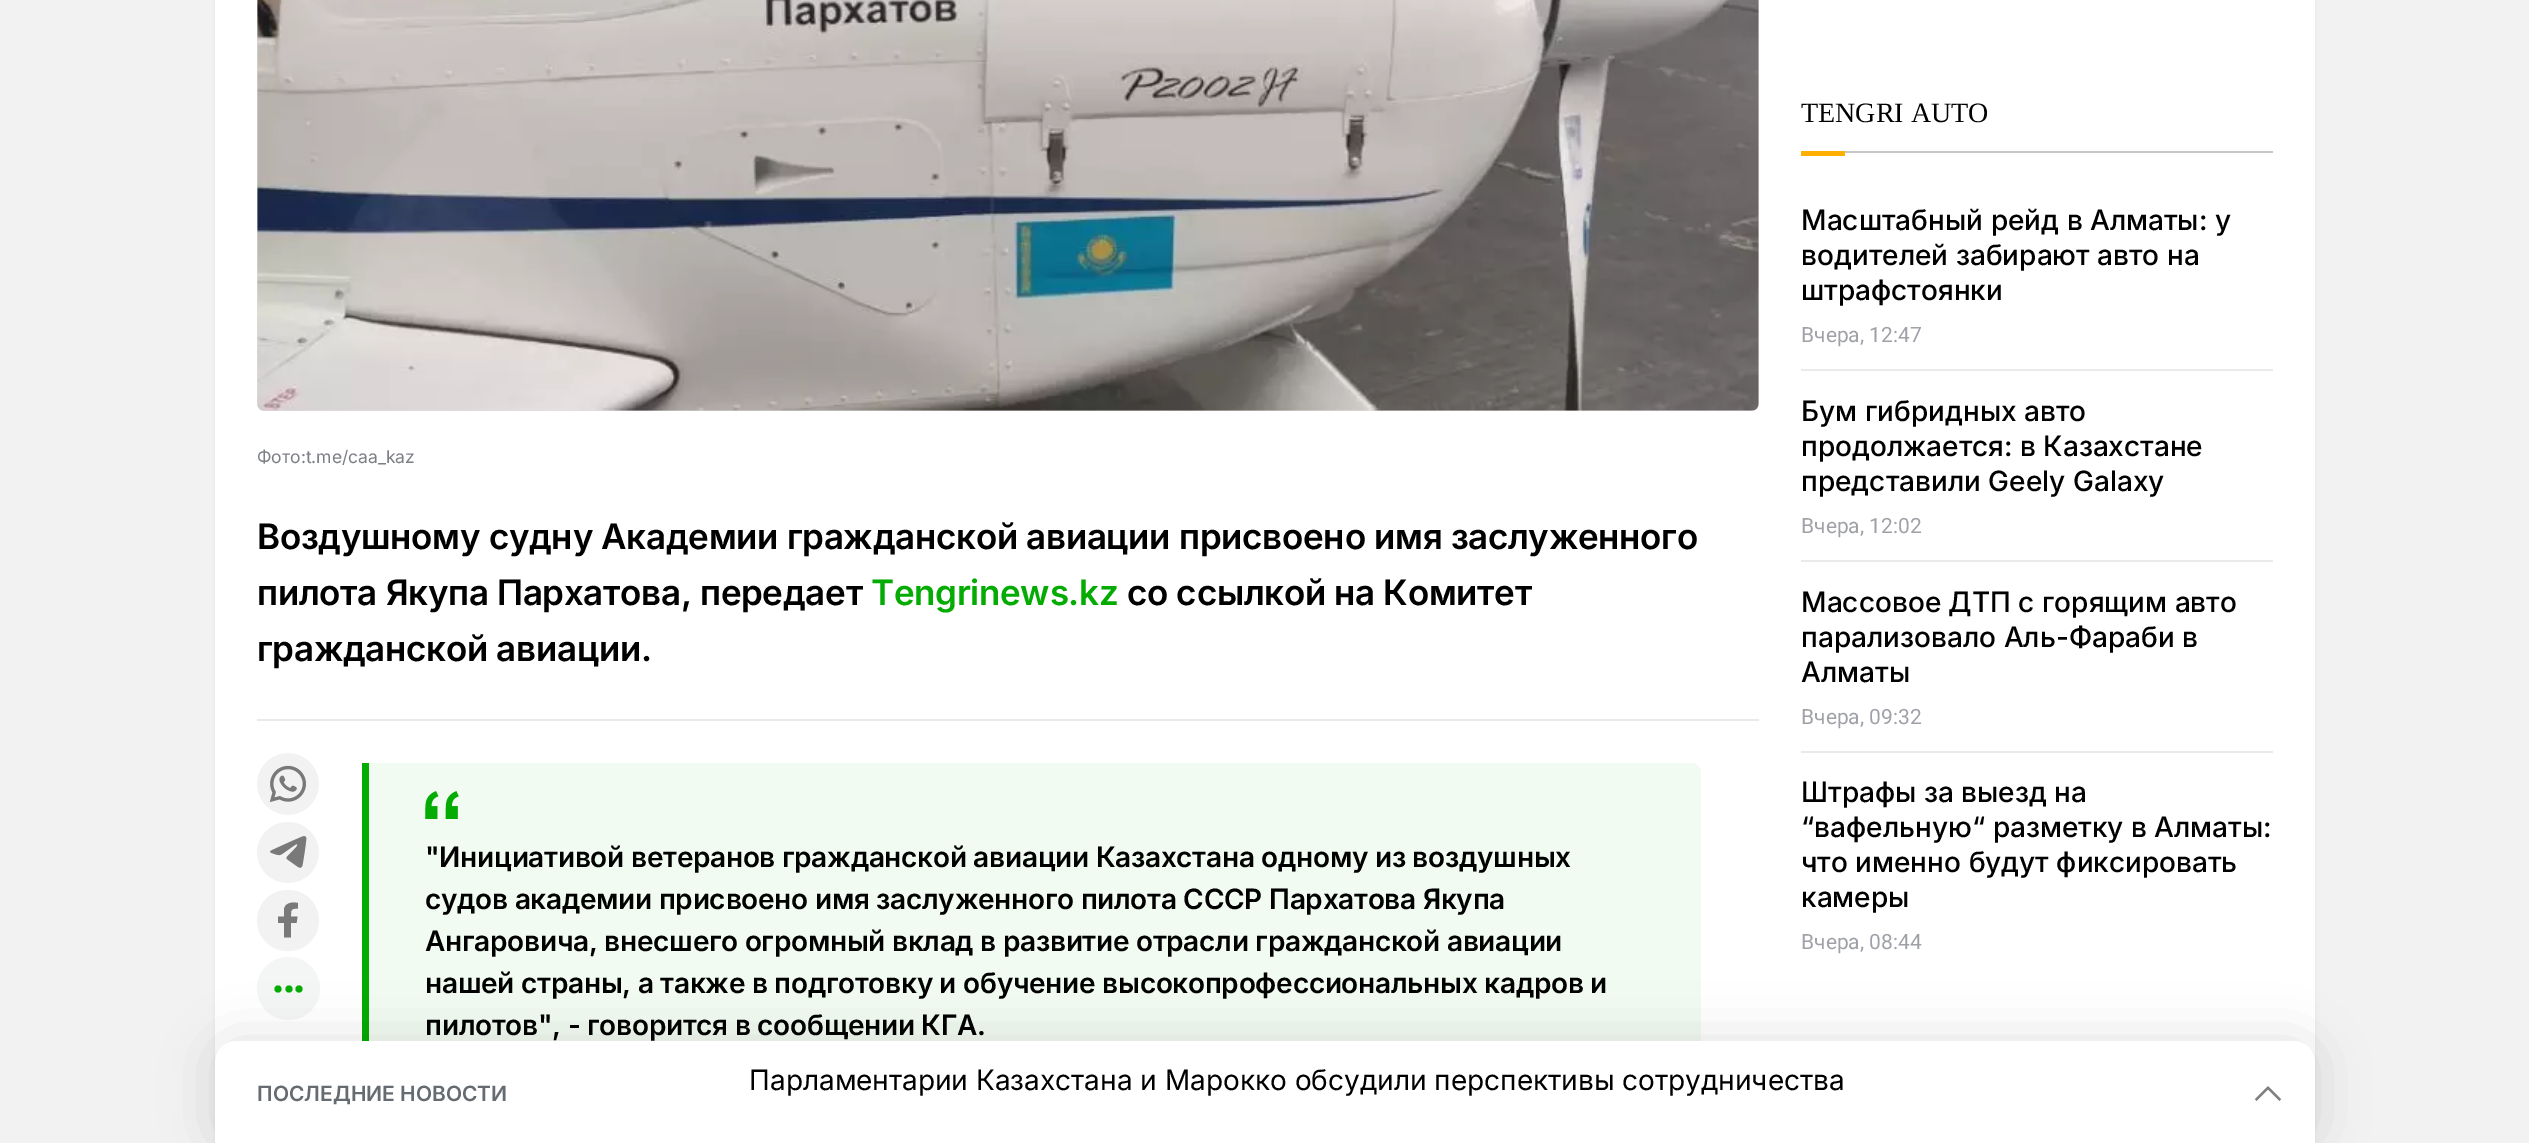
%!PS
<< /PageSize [2529 1143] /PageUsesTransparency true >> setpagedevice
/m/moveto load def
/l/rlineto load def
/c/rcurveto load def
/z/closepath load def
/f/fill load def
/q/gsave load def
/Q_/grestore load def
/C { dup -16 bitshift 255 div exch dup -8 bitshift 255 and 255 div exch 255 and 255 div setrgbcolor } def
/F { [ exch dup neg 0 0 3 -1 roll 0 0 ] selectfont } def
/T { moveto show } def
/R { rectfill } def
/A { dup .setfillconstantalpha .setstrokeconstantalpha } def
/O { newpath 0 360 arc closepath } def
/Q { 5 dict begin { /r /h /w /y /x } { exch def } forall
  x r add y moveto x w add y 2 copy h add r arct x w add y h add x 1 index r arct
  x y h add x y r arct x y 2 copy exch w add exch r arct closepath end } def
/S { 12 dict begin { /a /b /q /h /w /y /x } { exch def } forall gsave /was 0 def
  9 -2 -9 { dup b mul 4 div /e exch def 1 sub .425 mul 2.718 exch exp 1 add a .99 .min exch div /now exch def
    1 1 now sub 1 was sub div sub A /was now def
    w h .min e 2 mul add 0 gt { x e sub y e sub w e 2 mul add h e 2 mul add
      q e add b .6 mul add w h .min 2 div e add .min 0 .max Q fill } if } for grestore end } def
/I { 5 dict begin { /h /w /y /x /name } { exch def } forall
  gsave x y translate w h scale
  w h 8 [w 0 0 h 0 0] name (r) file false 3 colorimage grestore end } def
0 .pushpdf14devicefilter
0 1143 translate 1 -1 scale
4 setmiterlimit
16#F1F2F1 C
0 0 2529 1143 R
16#000000 C
215 -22 2100 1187 14 2.5 .05 S
16#FFFFFF C
215 0 2100 1062 R
q 257 -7 1502 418 7 Q clip newpath
<< /ShadingType 2 /ColorSpace /DeviceRGB /Coords [257 -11 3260 -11] /Extend [true true] /Function << /FunctionType 3 /Domain [0 1] /Functions [<< /FunctionType 2 /Domain [0 1] /C0 [.878 .878 .878] /C1 [.878 .878 .878] /N 1 >> << /FunctionType 2 /Domain [0 1] /C0 [.878 .878 .878] /C1 [.941 .941 .941] /N 1 >> << /FunctionType 2 /Domain [0 1] /C0 [.941 .941 .941] /C1 [.878 .878 .878] /N 1 >> << /FunctionType 2 /Domain [0 1] /C0 [.878 .878 .878] /C1 [.878 .878 .878] /N 1 >>] /Bounds [.25 .5 .75] /Encode [0 1 0 1 0 1 0 1] >> >> shfill Q_
(1.rgb) 257 0 1502 411 I
/Inter-Regular 17.5 F
16#7C7F85 C
(Фото:t.me/caa_kaz) 257 463 T
16#EAEAEC C
257 719 1502 2 R
/Inter-SemiBold 35 F
16#000000 C
257 549 m -.35 0 (Воздушному судну Академии гражданской авиации присвоено имя заслуженного) ashow
257 605 m -.35 0 (пилота Якупа Пархатова, передает) ashow
16#03AB02 C
871 605 m -.35 0 (Tengrinews.kz) ashow
16#000000 C
1127 605 m -.35 0 (со ссылкой на Комитет) ashow
257 661 m -.35 0 (гражданской авиации.) ashow
(2.rgb) 257 753 62 62 I
(3.rgb) 257 822 62 61 I
16#F2F2F2 C
257 890 62 61 30.5 Q f
16#797979 C
296.5 923 m 1 -6.5 l -6.5 0 l 0 -6.5 -.5 -8 7 -8 c 0 -5.5 l -6 -1 -13 -.5 -14 6.5 c 0 7 l -6 0 l 0 6.5 l 6 0 l 0 14.5 l 7 0 l 0 -14.5 l z f
16#F4F5F5 C
288.5 988.5 31.5 O f
16#03AB02 C
278 989 3.5 O f
289 989 3.5 O f
299 989 3.5 O f
16#F2FBF2 C
362 763 m 1330 0 l 5 0 9 4 9 9 c 0 308 l 0 5 -4 9 -9 9 c -1330 0 l z f
16#03AB02 C
362 763 7 278 R
(4.rgb) 425 791 34 28 I
/Inter-SemiBold 28 F
16#000000 C
425 867 m -.28 0 ("Инициативой ветеранов гражданской авиации Казахстана одному из воздушных) ashow
425 909 m -.28 0 (судов академии присвоено имя заслуженного пилота СССР Пархатова Якупа) ashow
425 951 m -.28 0 (Ангаровича, внесшего огромный вклад в развитие отрасли гражданской авиации) ashow
425 993 m -.28 0 (нашей страны, а также в подготовку и обучение высокопрофессиональных кадров и) ashow
425 1035 m -.28 0 (пилотов", - говорится в сообщении КГА.) ashow
16#C7C7C7 C
1845 151 428 2 R
/LiberationSerif-Regular 28 F
16#000000 C
(TENGRI AUTO) 1801 122 T
16#FFAF00 C
1801 151 44 5 R
16#EAEAEC C
1801 369 472 2 R
/Inter-Medium 28 F
16#000000 C
(Масштабный рейд в Алматы: у) 1801 230 T
(водителей забирают авто на) 1801 265 T
(штрафстоянки) 1801 300 T
/Roboto-Regular 21 F
16#9FA1A6 C
(Вчера, 12:47) 1801 342 T
16#EAEAEC C
1801 560 472 2 R
/Inter-Medium 28 F
16#000000 C
(Бум гибридных авто) 1801 421 T
(продолжается: в Казахстане) 1801 456 T
(представили Geely Galaxy) 1801 491 T
/Roboto-Regular 21 F
16#9FA1A6 C
(Вчера, 12:02) 1801 533 T
16#EAEAEC C
1801 751 472 2 R
/Inter-Medium 28 F
16#000000 C
(Массовое ДТП с горящим авто) 1801 612 T
(парализовало Аль-Фараби в) 1801 647 T
(Алматы) 1801 682 T
/Roboto-Regular 21 F
16#9FA1A6 C
(Вчера, 09:32) 1801 724 T
/Inter-Medium 28 F
16#000000 C
(Штрафы за выезд на) 1801 802 T
(“вафельную“ разметку в Алматы:) 1801 837 T
(что именно будут фиксировать) 1801 872 T
(камеры) 1801 907 T
/Roboto-Regular 21 F
16#9FA1A6 C
(Вчера, 08:44) 1801 949 T
16#000000 C
215 1041 2100 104 21 26 .12 S
16#FFFFFF C
236 1041 m 2058 0 l 11.5 0 21 9.5 21 21 c 0 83 l -2100 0 l 0 -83 l 0 -11.5 9.5 -21 21 -21 c z f
/Inter-SemiBold 21 F
16#656B71 C
(ПОСЛЕДНИЕ НОВОСТИ) 257 1101 T
16#808080 C
2267 1087 m .5 -.5 1.5 -.5 2 0 c 12 12 l -1.5 2 l -11.5 -11.5 l -11.5 11.5 l -1.5 -2 l z f
/Inter-Regular 28 F
16#000000 C
(Парламентарии Казахстана и Марокко обсудили перспективы сотрудничества) 749 1090 T
.poppdf14devicefilter showpage
